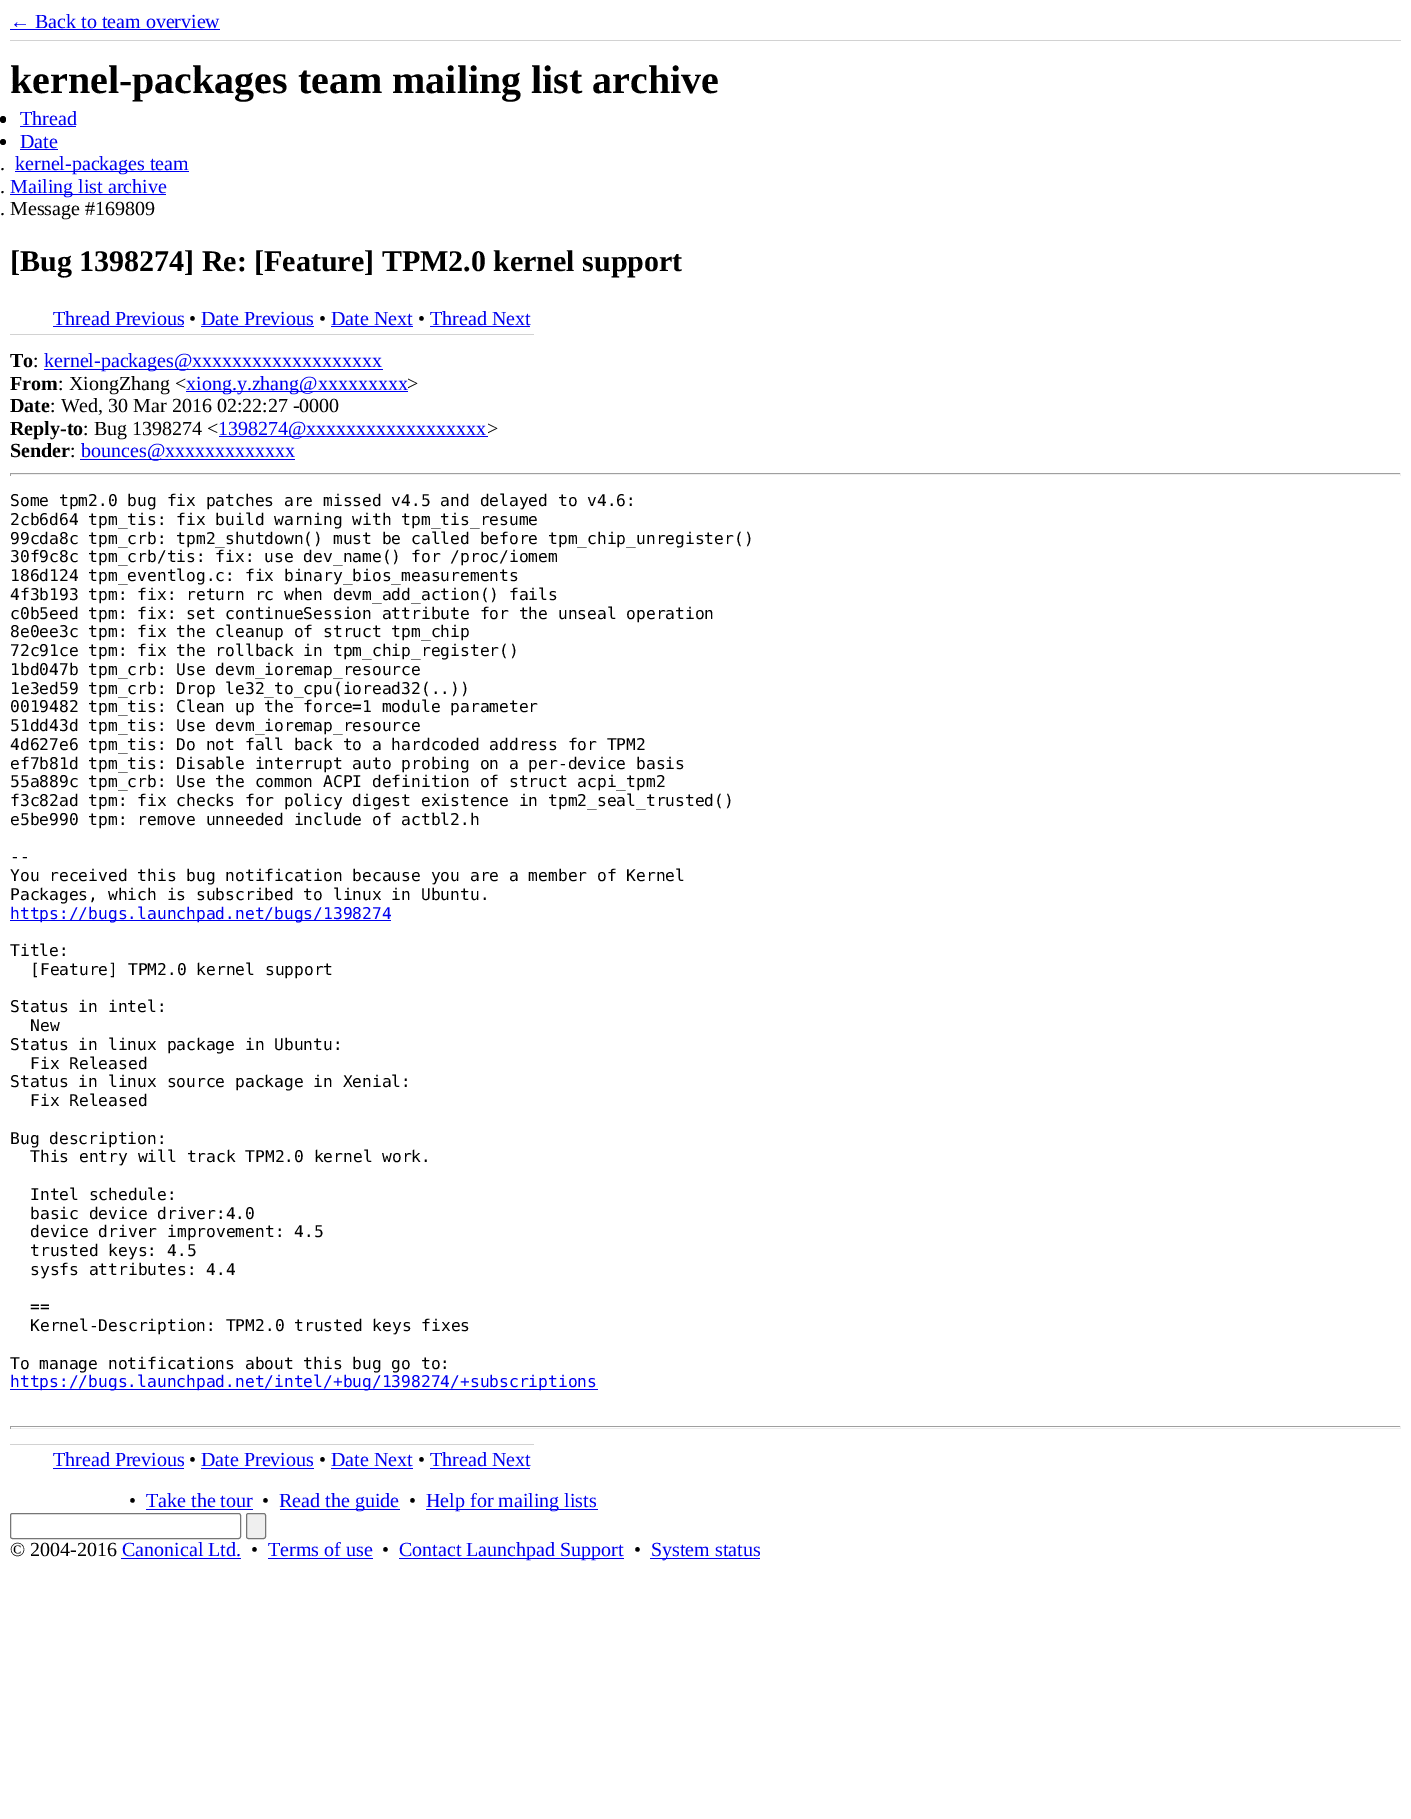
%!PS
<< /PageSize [1411 1819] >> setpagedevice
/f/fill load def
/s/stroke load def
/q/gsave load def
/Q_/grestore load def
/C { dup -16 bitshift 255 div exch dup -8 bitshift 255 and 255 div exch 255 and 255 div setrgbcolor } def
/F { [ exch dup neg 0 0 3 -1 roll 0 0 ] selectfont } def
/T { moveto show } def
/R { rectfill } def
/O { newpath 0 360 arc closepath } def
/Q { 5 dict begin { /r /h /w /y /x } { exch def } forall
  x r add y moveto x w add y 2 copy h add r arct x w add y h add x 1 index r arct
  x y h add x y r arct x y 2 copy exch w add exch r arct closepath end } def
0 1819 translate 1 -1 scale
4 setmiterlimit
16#FFFFFF C
0 0 1411 1819 R
16#D2D2D2 C
10 40 1391 1 R
/LiberationSerif-Regular 20 F
16#0000EE C
(← Back to team overview) 10 28 T
10 29 210 1 R
/LiberationSerif-Bold 40 F
16#000000 C
(kernel-packages team mailing list archive) 10 93 T
0 116 6 7 3 Q f
/LiberationSerif-Regular 20 F
16#0000EE C
(Thread) 20 125 T
20 126 56 1 R
16#000000 C
3 142 3 O f
16#0000EE C
(Date) 20 148 T
20 149 38 1 R
16#000000 C
(.) 0 170 T
16#0000EE C
15 171 174 1 R
(kernel-packages team) 15 170 T
16#000000 C
(.) 0 193 T
16#0000EE C
10 194 156 1 R
(Mailing list archive) 10 193 T
16#000000 C
(. Message #169809) 0 215 T
/LiberationSerif-Bold 30 F
([Bug 1398274] Re: [Feature] TPM2.0 kernel support) 10 271 T
16#D2D2D2 C
10 334 524 1 R
/LiberationSerif-Regular 20 F
16#0000EE C
(Thread Previous) 53 325 T
53 326 131 1 R
16#000000 C
(•) 189 325 T
16#0000EE C
(Date Previous) 201 325 T
201 326 113 1 R
16#000000 C
(•) 319 325 T
16#0000EE C
(Date Next) 331 325 T
331 326 82 1 R
16#000000 C
(•) 418 325 T
16#0000EE C
(Thread Next) 430 325 T
430 326 100 1 R
/LiberationSerif-Bold 20 F
16#000000 C
(To) 10 367 T
/LiberationSerif-Regular 20 F
(:) 33 367 T
16#0000EE C
44 369 339 1 R
(kernel-packages@xxxxxxxxxxxxxxxxxxx) 44 367 T
/LiberationSerif-Bold 20 F
16#000000 C
(From) 10 390 T
/LiberationSerif-Regular 20 F
(: XiongZhang <) 58 390 T
16#0000EE C
186 391 222 1 R
(xiong.y.zhang@xxxxxxxxx) 186 390 T
16#000000 C
(>) 407 390 T
/LiberationSerif-Bold 20 F
(Date) 10 412 T
/LiberationSerif-Regular 20 F
(: Wed, 30 Mar 2016 02:22:27 -0000) 50 412 T
/LiberationSerif-Bold 20 F
(Reply-to) 10 435 T
/LiberationSerif-Regular 20 F
(: Bug 1398274 <) 83 435 T
16#0000EE C
219 436 269 1 R
(1398274@xxxxxxxxxxxxxxxxxx) 218 435 T
16#000000 C
(>) 487 435 T
/LiberationSerif-Bold 20 F
(Sender) 10 457 T
/LiberationSerif-Regular 20 F
(:) 70 457 T
16#0000EE C
80 459 215 1 R
(bounces@xxxxxxxxxxxxx) 81 457 T
16#9F9F9F C
10 473 1391 1 R
16#EEEEEE C
1400 473 1 3 R
10 474 1391 1 R
16#9F9F9F C
10 473 1 3 R
/DejaVuSansMono-Regular 16.25 F
16#000000 C
(Some tpm2.0 bug fix patches are missed v4.5 and delayed to v4.6:) 10 506 T
(2cb6d64 tpm_tis: fix build warning with tpm_tis_resume) 10 525 T
(99cda8c tpm_crb: tpm2_shutdown\(\) must be called before tpm_chip_unregister\(\)) 10 544 T
(30f9c8c tpm_crb/tis: fix: use dev_name\(\) for /proc/iomem) 10 562 T
(186d124 tpm_eventlog.c: fix binary_bios_measurements) 10 581 T
(4f3b193 tpm: fix: return rc when devm_add_action\(\) fails) 10 600 T
(c0b5eed tpm: fix: set continueSession attribute for the unseal operation) 10 619 T
(8e0ee3c tpm: fix the cleanup of struct tpm_chip) 10 637 T
(72c91ce tpm: fix the rollback in tpm_chip_register\(\)) 10 656 T
(1bd047b tpm_crb: Use devm_ioremap_resource) 10 675 T
(1e3ed59 tpm_crb: Drop le32_to_cpu\(ioread32\(..\)\)) 10 694 T
(0019482 tpm_tis: Clean up the force=1 module parameter) 10 712 T
(51dd43d tpm_tis: Use devm_ioremap_resource) 10 731 T
(4d627e6 tpm_tis: Do not fall back to a hardcoded address for TPM2) 10 750 T
(ef7b81d tpm_tis: Disable interrupt auto probing on a per-device basis) 10 769 T
(55a889c tpm_crb: Use the common ACPI definition of struct acpi_tpm2) 10 787 T
(f3c82ad tpm: fix checks for policy digest existence in tpm2_seal_trusted\(\)) 10 806 T
(e5be990 tpm: remove unneeded include of actbl2.h) 10 825 T
(--) 10 862 T
(You received this bug notification because you are a member of Kernel) 10 881 T
(Packages, which is subscribed to linux in Ubuntu.) 10 900 T
16#0000EE C
10 920 381 1 R
(https://bugs.launchpad.net/bugs/1398274) 10 919 T
16#000000 C
(Title:) 10 956 T
([Feature] TPM2.0 kernel support) 30 975 T
(Status in intel:) 10 1012 T
(New) 30 1031 T
(Status in linux package in Ubuntu:) 10 1050 T
(Fix Released) 30 1069 T
(Status in linux source package in Xenial:) 10 1087 T
(Fix Released) 30 1106 T
(Bug description:) 10 1144 T
(This entry will track TPM2.0 kernel work.) 30 1162 T
(Intel schedule:) 30 1200 T
(basic device driver:4.0) 30 1219 T
(device driver improvement: 4.5) 30 1237 T
(trusted keys: 4.5) 30 1256 T
(sysfs attributes: 4.4) 30 1275 T
(==) 30 1312 T
(Kernel-Description: TPM2.0 trusted keys fixes) 30 1331 T
(To manage notifications about this bug go to:) 10 1369 T
16#0000EE C
10 1389 588 1 R
(https://bugs.launchpad.net/intel/+bug/1398274/+subscriptions) 10 1387 T
16#9F9F9F C
10 1426 1391 1 R
16#EEEEEE C
1400 1426 1 3 R
10 1428 1391 1 R
16#9F9F9F C
10 1426 1 3 R
16#D2D2D2 C
10 1444 524 1 R
/LiberationSerif-Regular 20 F
16#0000EE C
(Thread Previous) 53 1466 T
53 1468 131 1 R
16#000000 C
(•) 189 1466 T
16#0000EE C
(Date Previous) 201 1466 T
201 1468 113 1 R
16#000000 C
(•) 319 1466 T
16#0000EE C
(Date Next) 331 1466 T
331 1468 82 1 R
16#000000 C
(•) 418 1466 T
16#0000EE C
(Thread Next) 430 1466 T
430 1468 100 1 R
16#000000 C
(•) 129 1507 T
16#0000EE C
(Take the tour) 146 1507 T
146 1509 107 1 R
16#000000 C
(•) 262 1507 T
16#0000EE C
280 1509 120 1 R
(Read the guide) 279 1507 T
16#000000 C
(•) 409 1507 T
16#0000EE C
426 1509 172 1 R
(Help for mailing lists) 426 1507 T
16#767676 C
10.5 1513.5 230 25 2 Q s
16#EFEFEF C
246.5 1513.5 19 25 2 Q q f Q_
16#767676 C
s
16#000000 C
(© 2004-2016) 10 1556 T
16#0000EE C
(Canonical Ltd.) 122 1556 T
121 1558 120 1 R
16#000000 C
(•) 251 1556 T
16#0000EE C
(Terms of use) 268 1556 T
268 1558 105 1 R
16#000000 C
(•) 382 1556 T
16#0000EE C
399 1558 225 1 R
(Contact Launchpad Support) 399 1556 T
16#000000 C
(•) 634 1556 T
16#0000EE C
650 1558 110 1 R
(System status) 651 1556 T
showpage
